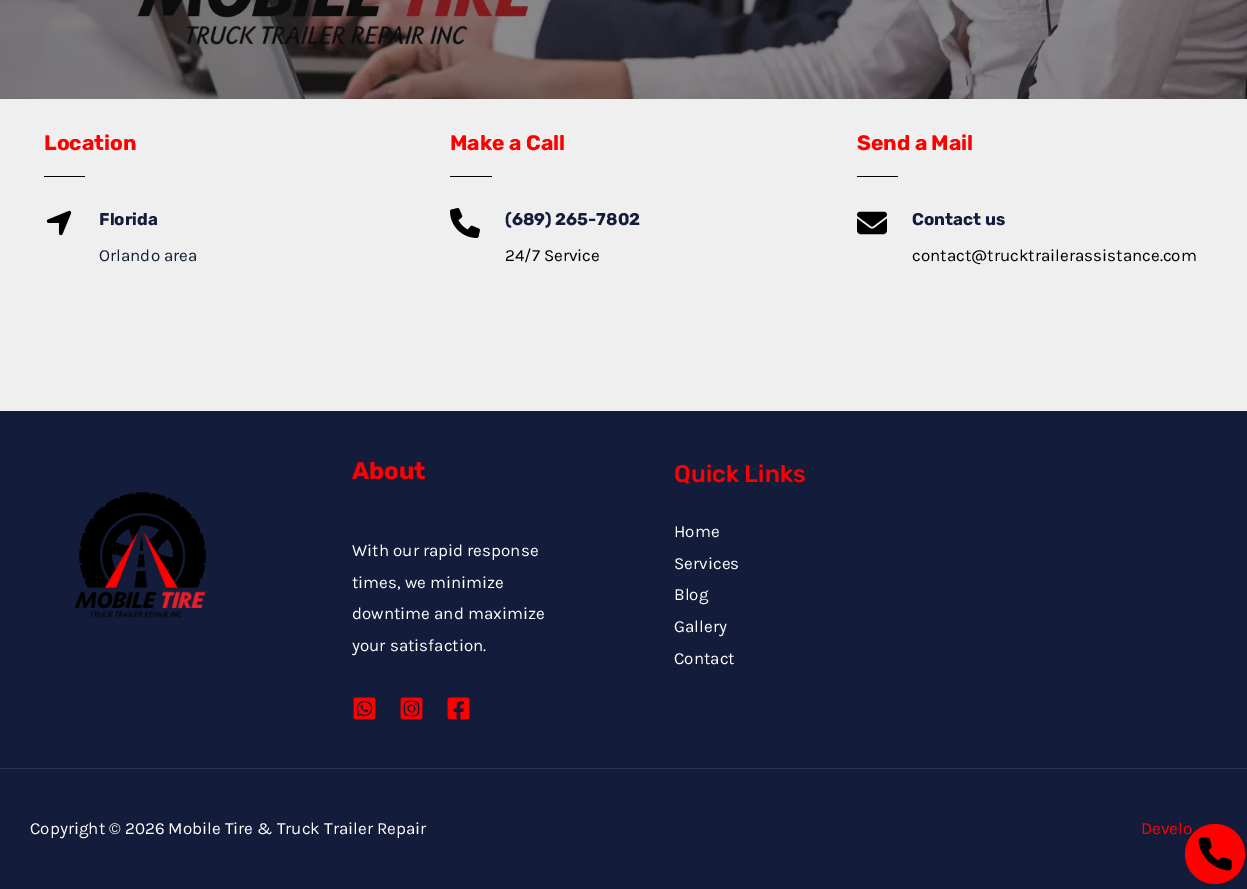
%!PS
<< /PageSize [1247 889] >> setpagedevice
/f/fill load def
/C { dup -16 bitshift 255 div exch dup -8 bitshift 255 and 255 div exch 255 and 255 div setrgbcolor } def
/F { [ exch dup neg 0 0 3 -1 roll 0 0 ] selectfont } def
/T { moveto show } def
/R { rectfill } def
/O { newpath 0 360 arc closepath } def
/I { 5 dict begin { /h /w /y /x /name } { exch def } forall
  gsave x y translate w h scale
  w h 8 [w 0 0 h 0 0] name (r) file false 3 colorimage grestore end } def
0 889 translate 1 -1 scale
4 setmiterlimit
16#EFEFEF C
0 0 1247 889 R
(1.rgb) 0 0 1247 99 I
/Rubik-Bold 21 F
16#FF0000 C
(Location) 44 150 T
16#000000 C
44 176 41 1 R
(2.rgb) 46 210 26 26 I
/Rubik-Bold 17 F
16#131D3B C
(Florida) 99 225 T
/Karla-Regular 17 F
(Orlando area) 99 261 T
/Rubik-Bold 21 F
16#FF0000 C
(Make a Call) 450 150 T
16#000000 C
450 176 42 1 R
(3.rgb) 450 208 30 30 I
/Rubik-Bold 17 F
16#131D3B C
(\(689\) 265-7802) 505 225 T
/Karla-Regular 17 F
16#000000 C
(24/7 Service) 505 261 T
/Rubik-Bold 21 F
16#FF0000 C
(Send a Mail) 857 150 T
16#000000 C
857 176 41 1 R
(4.rgb) 857 211 30 24 I
/Rubik-Bold 17 F
16#131D3B C
(Contact us) 912 225 T
/Karla-Regular 17 F
16#000000 C
(contact@trucktrailerassistance.com) 912 261 T
16#131D3B C
0 411 1247 357 R
(5.rgb) 74 492 132 126 I
/Rubik-Bold 24 F
16#FF0000 C
(About) 352 479 T
/Karla-Regular 17 F
16#FFFFFF C
(With our rapid response) 352 556 T
(times, we minimize) 352 588 T
(downtime and maximize) 352 619 T
(your satisfaction.) 352 651 T
(6.rgb) 353 697 23 23 I
(7.rgb) 400 697 23 23 I
(8.rgb) 447 697 23 23 I
/Rubik-Medium 24 F
16#FF0000 C
(Quick Links) 674 482 T
/Karla-Regular 17 F
16#FFFFFF C
(Home) 674 537 T
(Services) 674 569 T
(Blog) 674 600 T
(Gallery) 674 632 T
(Contact) 674 664 T
16#131D3B C
0 769 1247 120 R
16#2C344F C
0 768 1247 1 R
16#FFFFFF C
(Copyright © 2026 Mobile Tire & Truck Trailer Repair) 30 834 T
16#FF0000 C
(Develo) 1141 834 T
1215 854 30 O f
(9.rgb) 1198 837 34 34 I
showpage
